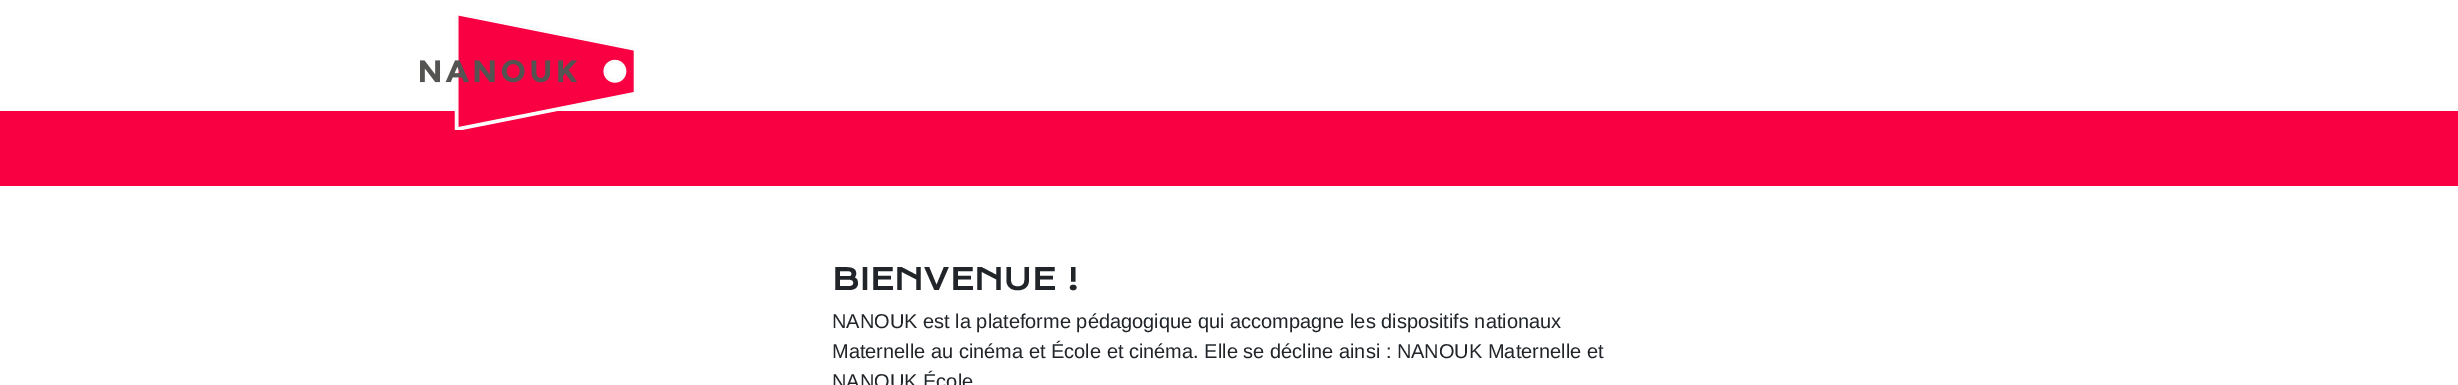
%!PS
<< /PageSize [2458 385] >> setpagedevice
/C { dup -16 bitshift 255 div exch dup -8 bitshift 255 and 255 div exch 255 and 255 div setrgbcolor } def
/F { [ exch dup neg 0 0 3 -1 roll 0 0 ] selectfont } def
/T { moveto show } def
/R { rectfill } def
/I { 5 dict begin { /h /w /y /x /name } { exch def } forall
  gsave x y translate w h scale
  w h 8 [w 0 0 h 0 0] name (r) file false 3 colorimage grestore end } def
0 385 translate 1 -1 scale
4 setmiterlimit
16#FFFFFF C
0 0 2458 385 R
16#F90042 C
0 111 2458 75 R
(1.rgb) 420 15 214 115 I
/KronaOne-Regular 30 F
16#212529 C
(BIENVENUE !) 832 290 T
/LiberationSans-Regular 20 F
(NANOUK est la plateforme pédagogique qui accompagne les dispositifs nationaux) 832 328 T
(Maternelle au cinéma et École et cinéma. Elle se décline ainsi : NANOUK Maternelle et) 832 358 T
(NANOUK École) 832 388 T
showpage
